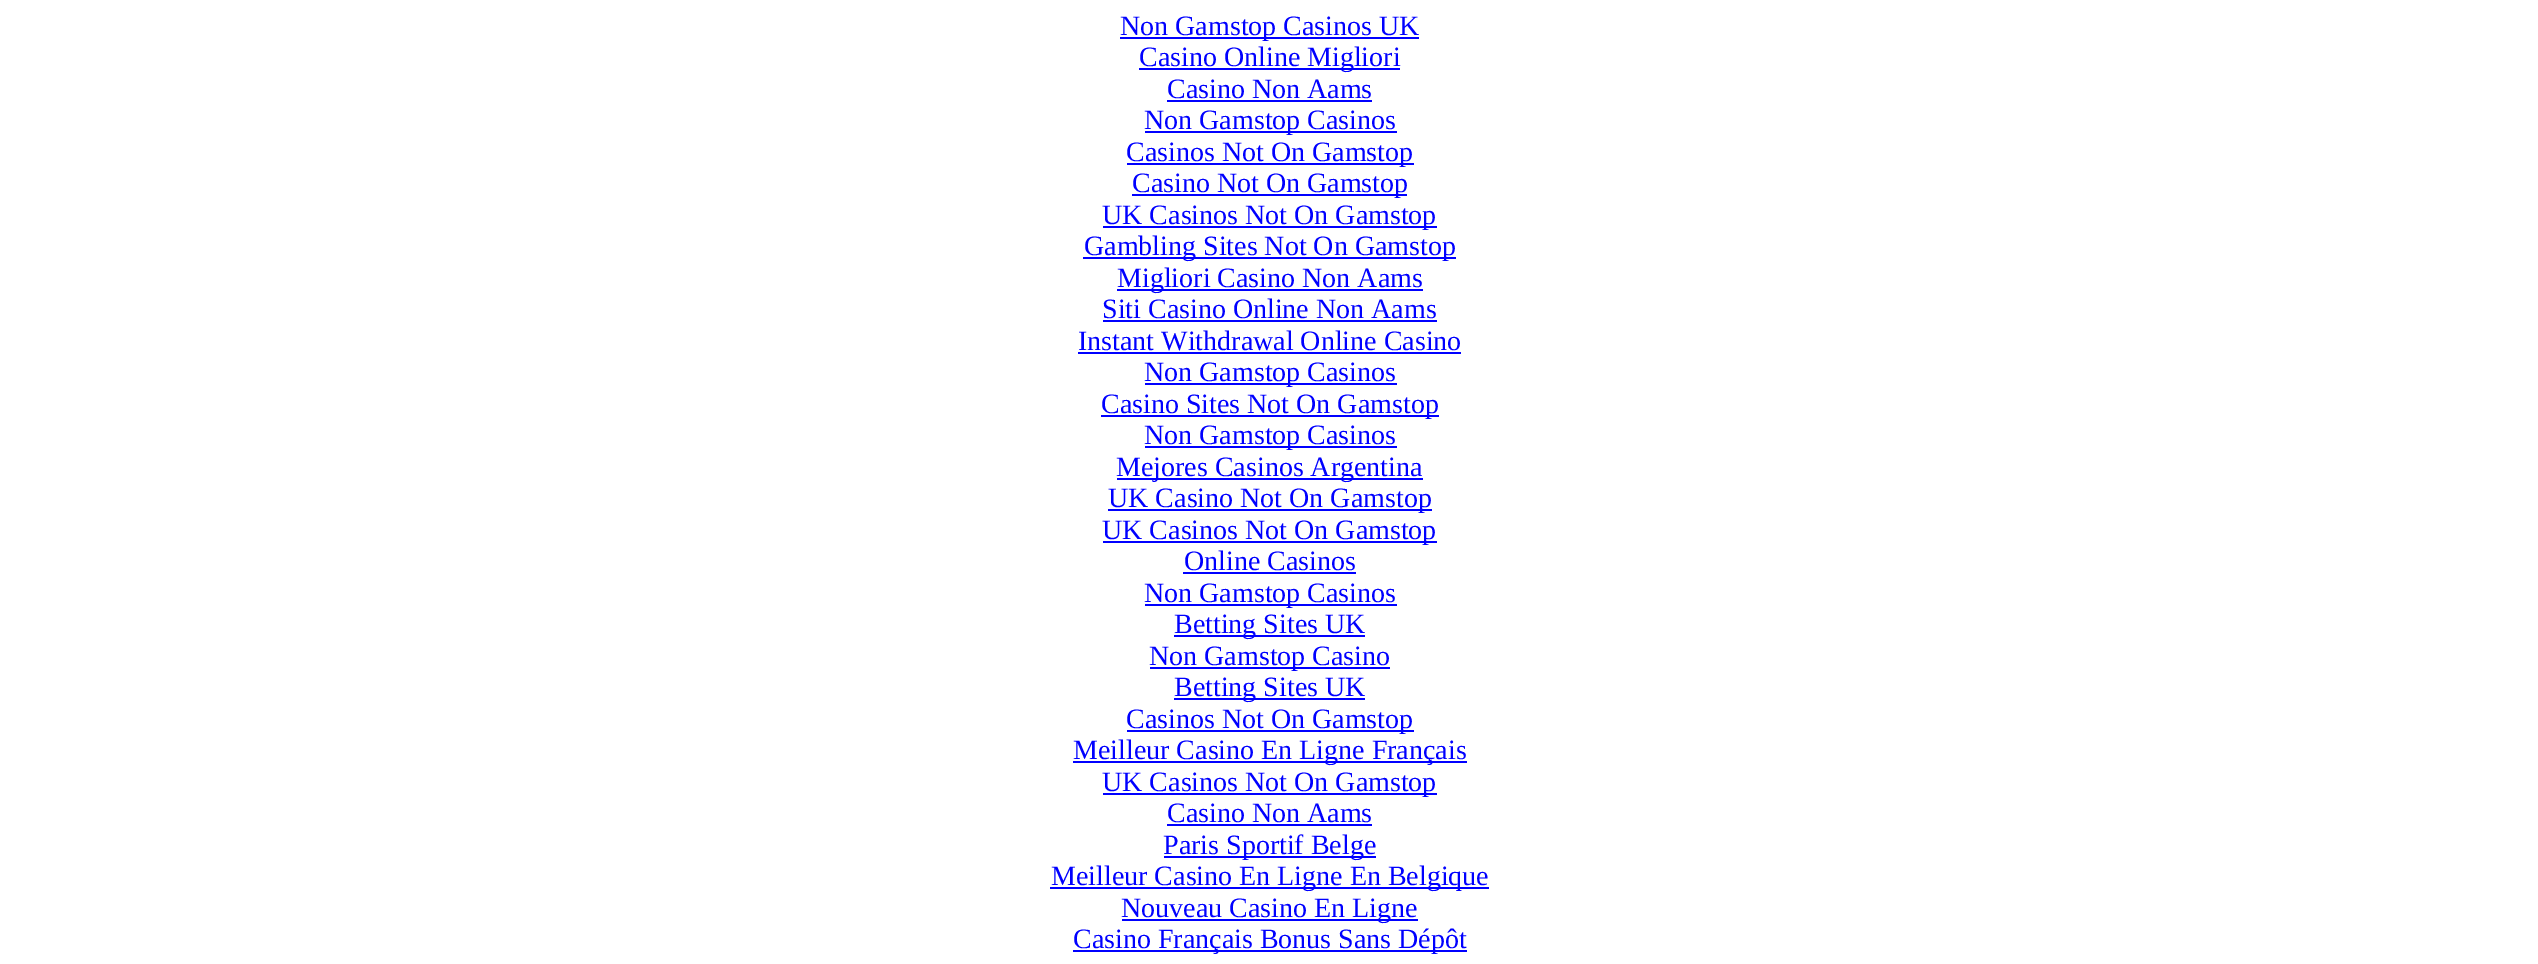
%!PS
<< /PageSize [2538 964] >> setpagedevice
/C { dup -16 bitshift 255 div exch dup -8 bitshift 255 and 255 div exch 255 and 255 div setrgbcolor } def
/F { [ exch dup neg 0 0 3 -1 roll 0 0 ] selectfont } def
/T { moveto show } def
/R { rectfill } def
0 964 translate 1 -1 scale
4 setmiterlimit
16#FFFFFF C
0 0 2538 964 R
16#0000FF C
1120 37 299 2 R
/LiberationSerif-Regular 28 F
(Non Gamstop Casinos UK) 1120 35 T
1139 68 261 2 R
(Casino Online Migliori) 1139 66 T
(Casino Non Aams) 1167 98 T
1167 100 205 2 R
1145 131 252 2 R
(Non Gamstop Casinos) 1144 129 T
1127 163 287 2 R
(Casinos Not On Gamstop) 1126 161 T
1132 194 275 2 R
(Casino Not On Gamstop) 1132 192 T
1103 226 334 2 R
(UK Casinos Not On Gamstop) 1102 224 T
1083 257 373 2 R
(Gambling Sites Not On Gamstop) 1084 255 T
1117 289 306 2 R
(Migliori Casino Non Aams) 1117 287 T
(Siti Casino Online Non Aams) 1102 318 T
1103 320 334 2 R
(Instant Withdrawal Online Casino) 1078 350 T
1078 352 383 2 R
1145 383 252 2 R
(Non Gamstop Casinos) 1144 381 T
1101 415 338 2 R
(Casino Sites Not On Gamstop) 1101 413 T
1145 446 252 2 R
(Non Gamstop Casinos) 1144 444 T
1117 478 306 2 R
(Mejores Casinos Argentina) 1116 476 T
1108 509 324 2 R
(UK Casino Not On Gamstop) 1108 507 T
1103 541 334 2 R
(UK Casinos Not On Gamstop) 1102 539 T
(Online Casinos) 1184 570 T
1183 572 173 2 R
1145 604 252 2 R
(Non Gamstop Casinos) 1144 602 T
1174 635 191 2 R
(Betting Sites UK) 1174 633 T
1150 667 240 2 R
(Non Gamstop Casino) 1149 665 T
1174 698 191 2 R
(Betting Sites UK) 1174 696 T
1127 730 287 2 R
(Casinos Not On Gamstop) 1126 728 T
1073 761 394 2 R
(Meilleur Casino En Ligne Français) 1073 759 T
1103 793 334 2 R
(UK Casinos Not On Gamstop) 1102 791 T
(Casino Non Aams) 1167 822 T
1167 824 205 2 R
1164 856 212 2 R
(Paris Sportif Belge) 1163 854 T
1050 887 439 2 R
(Meilleur Casino En Ligne En Belgique) 1051 885 T
1122 919 296 2 R
(Nouveau Casino En Ligne) 1121 917 T
1073 950 394 2 R
(Casino Français Bonus Sans Dépôt) 1073 948 T
showpage
